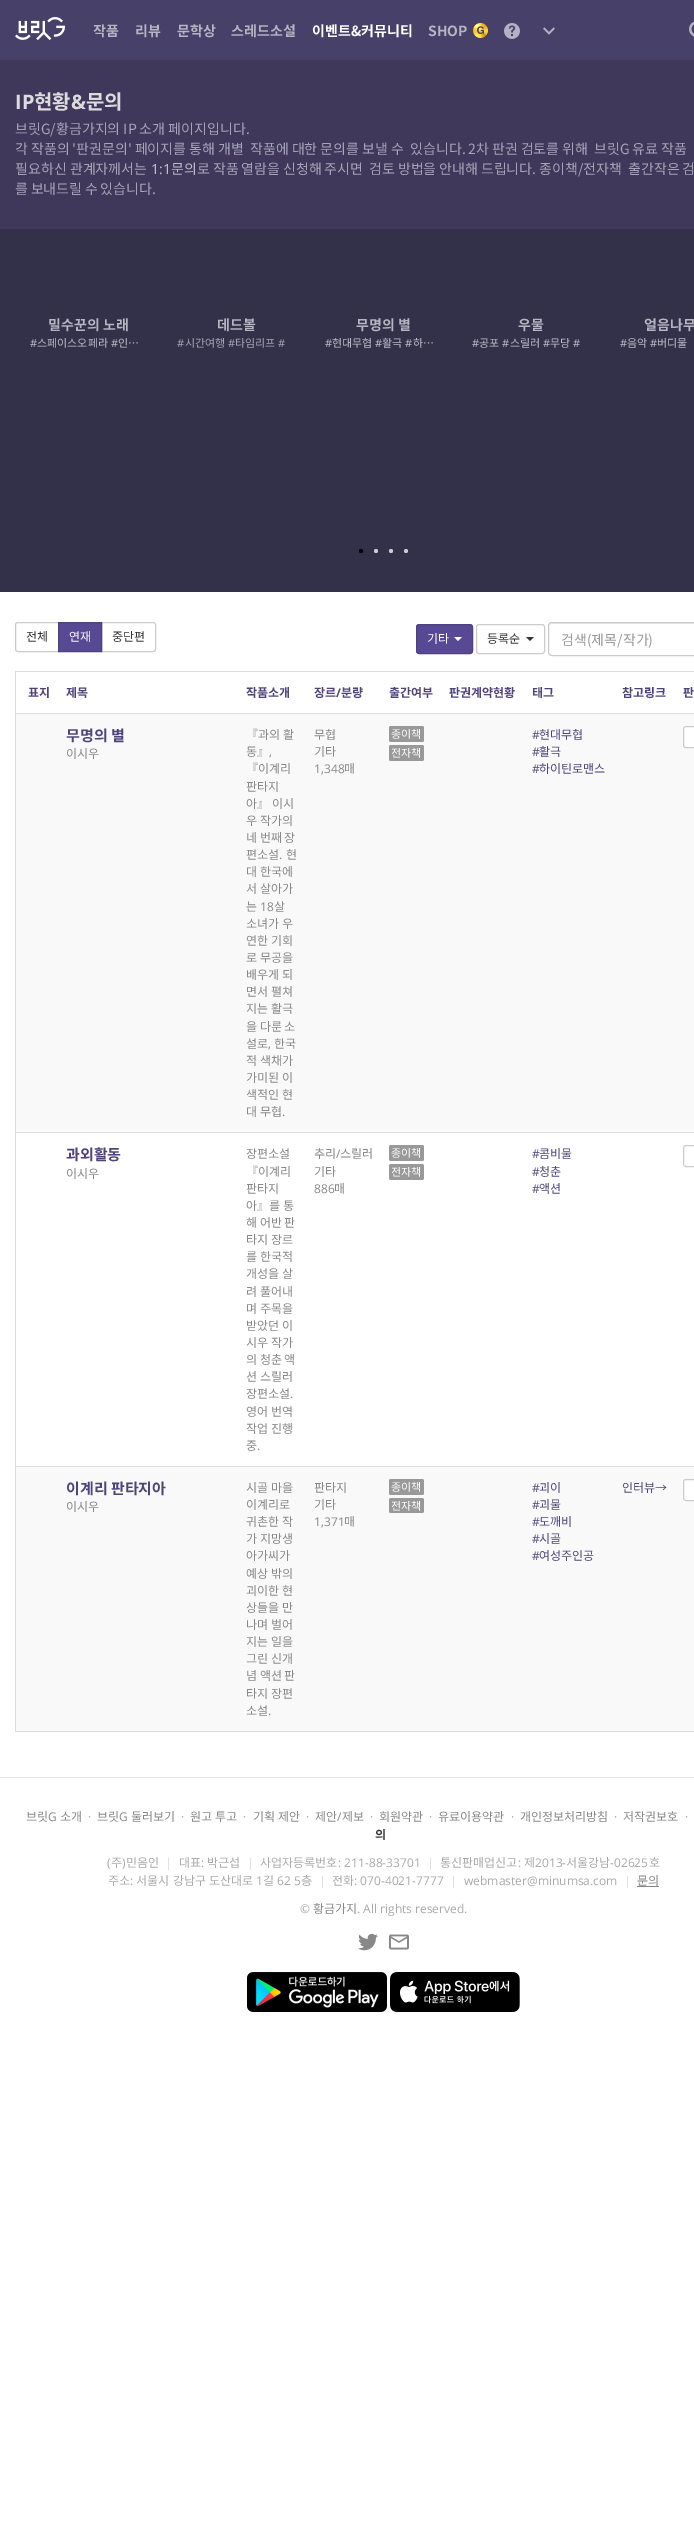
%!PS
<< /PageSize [694 2544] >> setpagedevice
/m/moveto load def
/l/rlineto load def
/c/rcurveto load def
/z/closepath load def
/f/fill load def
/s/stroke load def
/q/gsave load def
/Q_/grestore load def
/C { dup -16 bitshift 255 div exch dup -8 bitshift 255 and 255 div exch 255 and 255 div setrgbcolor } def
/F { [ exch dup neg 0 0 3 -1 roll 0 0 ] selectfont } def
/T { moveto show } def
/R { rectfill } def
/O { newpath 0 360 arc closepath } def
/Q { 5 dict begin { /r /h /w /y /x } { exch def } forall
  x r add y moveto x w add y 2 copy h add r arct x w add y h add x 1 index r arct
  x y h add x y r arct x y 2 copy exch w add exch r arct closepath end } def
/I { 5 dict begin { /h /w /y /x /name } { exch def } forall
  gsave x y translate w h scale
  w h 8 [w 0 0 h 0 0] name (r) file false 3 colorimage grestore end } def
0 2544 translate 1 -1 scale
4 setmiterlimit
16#FFFFFF C
0 0 694 2544 R
16#474069 C
0 0 694 60 R
(1.rgb) 15 17 50 24 I
/NotoSansKR-Bold 14 F
16#B7B5C1 C
(작품) 93 36 T
(리뷰) 135 36 T
(문학상) 177 36 T
(스레드소설) 231 36 T
16#FFFFFF C
(이벤트&커뮤니티) 312 36 T
16#B7B5C1 C
(SHOP) 428 36 T
(2.rgb) 473 23 15 15 I
(3.rgb) 504 23 16 16 I
(4.rgb) 543 27 12 8 I
(5.rgb) 689 21 5 16 I
16#3F385B C
0 60 694 169 R
/OpenSans-Bold 20 F
16#DCDCDE C
(IP) 15 109 T
/NotoSansKR-Bold 20 F
(현황) 34 109 T
/OpenSans-Bold 20 F
(&) 71 109 T
/NotoSansKR-Bold 20 F
(문의) 86 109 T
/NotoSansKR-Regular 14 F
16#A7A4B7 C
(브릿G/황금가지의 IP 소개 페이지입니다.) 15 134 T
15 154 m -.2 0 32 (각 작품의 '판권문의' 페이지를 통해 개별) widthshow
250 154 m -.2 0 32 (작품에 대한 문의를 보낼 수) widthshow
410 154 m -.2 0 32 (있습니다. 2차 판권 검토를 위해) widthshow
594 154 m -.2 0 32 (브릿G 유료 작품) widthshow
(필요하신 관계자께서는) 15 174 T
/OpenSans-Regular 14 F
16#BFBDCA C
(1:1) 151 174 T
/NotoSansKR-Regular 14 F
(문의) 171 174 T
16#A7A4B7 C
197 174 m -.25 0 32 (로 작품 열람을 신청해 주시면) widthshow
369 174 m -.25 0 32 (검토 방법을 안내해 드립니다. 종이책/전자책) widthshow
628 174 m -.25 0 32 (출간작은 검) widthshow
15 194 m -.5 0 32 (를 보내드릴 수 있습니다.) widthshow
16#33304A C
0 229 694 363 R
/NotoSansKR-Bold 14 F
16#B7B5C1 C
(밀수꾼의 노래) 48 330 T
/OpenSans-Regular 11 F
16#BFBDCA C
(#) 30 347 T
/NotoSansKR-Regular 11 F
(스페이스오페라) 37 347 T
/OpenSans-Regular 11 F
(#) 111 347 T
/NotoSansKR-Regular 11 F
(인…) 118 347 T
/NotoSansKR-Bold 14 F
16#B7B5C1 C
(데드볼) 217 330 T
/OpenSans-Regular 11 F
16#A7A4B7 C
(#) 177 347 T
/NotoSansKR-Regular 11 F
(시간여행) 185 347 T
/OpenSans-Regular 11 F
(#) 228 347 T
/NotoSansKR-Regular 11 F
(타임리프) 235 347 T
/OpenSans-Regular 11 F
(#) 278 347 T
/NotoSansKR-Bold 14 F
16#B7B5C1 C
(무명의 별) 356 330 T
/OpenSans-Regular 11 F
16#BFBDCA C
(#) 325 347 T
/NotoSansKR-Regular 11 F
(현대무협) 332 347 T
/OpenSans-Regular 11 F
(#) 375 347 T
/NotoSansKR-Regular 11 F
(활극) 382 347 T
/OpenSans-Regular 11 F
(#) 405 347 T
/NotoSansKR-Regular 11 F
(하…) 413 347 T
/NotoSansKR-Bold 14 F
16#B7B5C1 C
(우물) 518 330 T
/OpenSans-Regular 11 F
16#BFBDCA C
(#) 472 347 T
/NotoSansKR-Regular 11 F
(공포) 479 347 T
/OpenSans-Regular 11 F
(#) 502 347 T
/NotoSansKR-Regular 11 F
(스릴러) 510 347 T
/OpenSans-Regular 11 F
(#) 543 347 T
/NotoSansKR-Regular 11 F
(무당) 550 347 T
/OpenSans-Regular 11 F
(#) 573 347 T
/NotoSansKR-Bold 14 F
16#B7B5C1 C
(얼음나무) 644 330 T
/OpenSans-Regular 11 F
16#BFBDCA C
(#) 620 347 T
/NotoSansKR-Regular 11 F
(음악) 627 347 T
/OpenSans-Regular 11 F
(#) 650 347 T
/NotoSansKR-Regular 11 F
(버디물) 657 347 T
16#000000 C
361 551 2 O f
16#CCCCCC C
376 551 2 O f
391 551 2 O f
406 551 2 O f
18 622.5 m 40.5 0 l 0 29 l -40.5 0 l -1.5 0 -2.5 -1 -2.5 -2.5 c 0 -24 l 0 -1.5 1 -2.5 2.5 -2.5 c z s
/NotoSansKR-Regular 12 F
16#333333 C
(전체) 26 641 T
16#CCCCCC C
101.5 622.5 m 51.5 0 l 1.5 0 2.5 1 2.5 2.5 c 0 24 l 0 1.5 -1 2.5 -2.5 2.5 c -51.5 0 l z s
16#574994 C
58.5 622.5 m 43 0 l 0 29 l -43 0 l z q f Q_
16#4D4183 C
s
16#FFFFFF C
(연재) 69 641 T
16#333333 C
(중단편) 112 641 T
16#574994 C
416.5 624.5 56 29 2.5 Q q f Q_
16#4D4183 C
s
16#FFFFFF C
(기타) 427 643 T
454 637 m 8 0 l -4 4 l z f
16#CCCCCC C
476.5 624.5 68 29 2.5 Q s
16#333333 C
(등록순) 487 643 T
526 637 m 8 0 l -4 4 l z f
16#ECECEC C
552 624 m 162 0 l 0 -1 l -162 0 l -2 0 -3 2 -3 4 c 0 -2 1 -3 3 -3 c z f
16#CCCCCC C
552 622.5 m 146.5 0 l 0 33 l -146.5 0 l -2 0 -3.5 -1.5 -3.5 -3.5 c 0 -26 l 0 -2 1.5 -3.5 3.5 -3.5 c z s
/NotoSansKR-Regular 14 F
16#999999 C
(검색\(제목/작가\)) 561 645 T
16#DDDDDD C
15 671 679 1 R
15 1731 679 1 R
15 671 1 1061 R
/NotoSansKR-Bold 12 F
16#4E447B C
(표지) 28 697 T
(제목) 66 697 T
(작품소개) 246 697 T
(장르) 314 697 T
/OpenSans-Bold 12 F
(/) 336 697 T
/NotoSansKR-Bold 12 F
(분량) 341 697 T
(출간여부) 389 697 T
(판권계약현황) 449 697 T
(태그) 532 697 T
(참고링크) 622 697 T
(판) 683 697 T
16#F9F9F9 C
16 714 678 418 R
16#DDDDDD C
15 713 679 1 R
16#FFFFFF C
683.5 726.5 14 21 2.5 Q q f Q_
16#CCCCCC C
s
/NotoSansKR-Bold 15 F
16#4E447B C
(무명의 별) 66 741 T
/NotoSansKR-Regular 12 F
16#888888 C
(이시우) 66 758 T
(『과외 활) 246 739 T
(동』) 246 756 T
/OpenSans-Regular 12 F
(,) 269 756 T
/NotoSansKR-Regular 12 F
(『이계리) 246 773 T
(판타지) 246 791 T
(아』 이시) 246 808 T
(우 작가의) 246 825 T
(네 번째 장) 246 842 T
(편소설) 246 859 T
/OpenSans-Regular 12 F
(.) 279 859 T
/NotoSansKR-Regular 12 F
(현) 286 859 T
(대 한국에) 246 876 T
(서 살아가) 246 893 T
(는) 246 911 T
/OpenSans-Regular 12 F
(18) 260 911 T
/NotoSansKR-Regular 12 F
(살) 274 911 T
(소녀가 우) 246 928 T
(연한 기회) 246 945 T
(로 무공을) 246 962 T
(배우게 되) 246 979 T
(면서 펼쳐) 246 996 T
(지는 활극) 246 1013 T
(을 다룬 소) 246 1031 T
(설로) 246 1048 T
/OpenSans-Regular 12 F
(,) 268 1048 T
/NotoSansKR-Regular 12 F
(한국) 274 1048 T
(적 색채가) 246 1065 T
(가미된 이) 246 1082 T
(색적인 현) 246 1099 T
(대 무협) 246 1116 T
/OpenSans-Regular 12 F
(.) 282 1116 T
/NotoSansKR-Regular 12 F
(무협) 314 739 T
(기타) 314 756 T
/OpenSans-Regular 12 F
(1,348) 314 773 T
/NotoSansKR-Regular 12 F
(매) 344 773 T
16#999999 C
389 726 35 16 2 Q f
/NotoSansKR-Regular 11 F
16#FFFFFF C
(종이책) 391 738 T
16#999999 C
389 745 35 16 2 Q f
16#FFFFFF C
(전자책) 391 757 T
/OpenSans-Regular 12 F
16#4E447B C
(#) 532 739 T
/NotoSansKR-Regular 12 F
(현대무협) 539 739 T
/OpenSans-Regular 12 F
(#) 532 756 T
/NotoSansKR-Regular 12 F
(활극) 539 756 T
/OpenSans-Regular 12 F
(#) 532 773 T
/NotoSansKR-Regular 12 F
(하이틴로맨스) 539 773 T
16#DDDDDD C
15 1132 679 1 R
16#CCCCCC C
683.5 1145.5 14 21 2.5 Q s
/NotoSansKR-Bold 15 F
16#4E447B C
(과외활동) 66 1160 T
/NotoSansKR-Regular 12 F
16#888888 C
(이시우) 66 1178 T
(장편소설) 246 1158 T
(『이계리) 246 1176 T
(판타지) 246 1193 T
(아』를 통) 246 1210 T
(해 어반 판) 246 1227 T
(타지 장르) 246 1244 T
(를 한국적) 246 1261 T
(개성을 살) 246 1278 T
(려 풀어내) 246 1296 T
(며 주목을) 246 1313 T
(받았던 이) 246 1330 T
(시우 작가) 246 1347 T
(의 청춘 액) 246 1364 T
(션 스릴러) 246 1381 T
(장편소설) 246 1398 T
/OpenSans-Regular 12 F
(.) 290 1398 T
/NotoSansKR-Regular 12 F
(영어 번역) 246 1416 T
(작업 진행) 246 1433 T
(중) 246 1450 T
/OpenSans-Regular 12 F
(.) 257 1450 T
/NotoSansKR-Regular 12 F
(추리) 314 1158 T
/OpenSans-Regular 12 F
(/) 336 1158 T
/NotoSansKR-Regular 12 F
(스릴러) 340 1158 T
(기타) 314 1176 T
/OpenSans-Regular 12 F
(886) 314 1193 T
/NotoSansKR-Regular 12 F
(매) 334 1193 T
16#999999 C
389 1145 35 16 2 Q f
/NotoSansKR-Regular 11 F
16#FFFFFF C
(종이책) 391 1157 T
16#999999 C
389 1164 35 16 2 Q f
16#FFFFFF C
(전자책) 391 1176 T
/OpenSans-Regular 12 F
16#4E447B C
(#) 532 1158 T
/NotoSansKR-Regular 12 F
(콤비물) 539 1158 T
/OpenSans-Regular 12 F
(#) 532 1176 T
/NotoSansKR-Regular 12 F
(청춘) 539 1176 T
/OpenSans-Regular 12 F
(#) 532 1193 T
/NotoSansKR-Regular 12 F
(액션) 539 1193 T
16#F9F9F9 C
16 1467 678 264 R
16#DDDDDD C
15 1466 679 1 R
16#FFFFFF C
683.5 1479.5 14 21 2.5 Q q f Q_
16#CCCCCC C
s
/NotoSansKR-Bold 15 F
16#4E447B C
(이계리 판타지아) 66 1494 T
/NotoSansKR-Regular 12 F
16#888888 C
(이시우) 66 1511 T
(시골 마을) 246 1492 T
(이계리로) 246 1509 T
(귀촌한 작) 246 1526 T
(가 지망생) 246 1543 T
(아가씨가) 246 1560 T
(예상 밖의) 246 1578 T
(괴이한 현) 246 1595 T
(상들을 만) 246 1612 T
(나며 벌어) 246 1629 T
(지는 일을) 246 1646 T
(그린 신개) 246 1663 T
(념 액션 판) 246 1680 T
(타지 장편) 246 1698 T
(소설) 246 1715 T
/OpenSans-Regular 12 F
(.) 268 1715 T
/NotoSansKR-Regular 12 F
(판타지) 314 1492 T
(기타) 314 1509 T
/OpenSans-Regular 12 F
(1,371) 314 1526 T
/NotoSansKR-Regular 12 F
(매) 344 1526 T
16#999999 C
389 1479 35 16 2 Q f
/NotoSansKR-Regular 11 F
16#FFFFFF C
(종이책) 391 1491 T
16#999999 C
389 1498 35 15 2 Q f
16#FFFFFF C
(전자책) 391 1510 T
/OpenSans-Regular 12 F
16#4E447B C
(#) 532 1492 T
/NotoSansKR-Regular 12 F
(괴이) 539 1492 T
/OpenSans-Regular 12 F
(#) 532 1509 T
/NotoSansKR-Regular 12 F
(괴물) 539 1509 T
/OpenSans-Regular 12 F
(#) 532 1526 T
/NotoSansKR-Regular 12 F
(도깨비) 539 1526 T
/OpenSans-Regular 12 F
(#) 532 1543 T
/NotoSansKR-Regular 12 F
(시골) 539 1543 T
/OpenSans-Regular 12 F
(#) 532 1560 T
/NotoSansKR-Regular 12 F
(여성주인공) 539 1560 T
(인터뷰→) 622 1492 T
16#E6E6E6 C
0 1777 694 1 R
16#888888 C
(브릿) 26 1821 T
/OpenSans-Regular 12 F
(G) 48 1821 T
/NotoSansKR-Regular 12 F
(소개) 60 1821 T
/OpenSans-Regular 12 F
16#AAAAAA C
(·) 88 1821 T
/NotoSansKR-Regular 12 F
16#888888 C
(브릿) 97 1821 T
/OpenSans-Regular 12 F
(G) 119 1821 T
/NotoSansKR-Regular 12 F
(둘러보기) 131 1821 T
/OpenSans-Regular 12 F
16#AAAAAA C
(·) 181 1821 T
/NotoSansKR-Regular 12 F
16#888888 C
(원고 투고) 190 1821 T
/OpenSans-Regular 12 F
16#AAAAAA C
(·) 243 1821 T
/NotoSansKR-Regular 12 F
16#888888 C
(기획 제안) 253 1821 T
/OpenSans-Regular 12 F
16#AAAAAA C
(·) 306 1821 T
/NotoSansKR-Regular 12 F
16#888888 C
(제안) 315 1821 T
/OpenSans-Regular 12 F
(/) 337 1821 T
/NotoSansKR-Regular 12 F
(제보) 342 1821 T
/OpenSans-Regular 12 F
16#AAAAAA C
(·) 370 1821 T
/NotoSansKR-Regular 12 F
16#888888 C
(회원약관) 379 1821 T
/OpenSans-Regular 12 F
16#AAAAAA C
(·) 429 1821 T
/NotoSansKR-Regular 12 F
16#888888 C
(유료이용약관) 438 1821 T
/OpenSans-Regular 12 F
16#AAAAAA C
(·) 511 1821 T
/NotoSansKR-Regular 12 F
16#888888 C
(개인정보처리방침) 520 1821 T
/OpenSans-Regular 12 F
16#AAAAAA C
(·) 614 1821 T
/NotoSansKR-Regular 12 F
16#888888 C
(저작권보호) 623 1821 T
/OpenSans-Regular 12 F
16#AAAAAA C
(·) 685 1821 T
/NotoSansKR-Bold 12 F
16#333333 C
(의) 375 1839 T
/OpenSans-Regular 12 F
16#AAAAAA C
(\() 107 1867 T
/NotoSansKR-Regular 12 F
(주) 111 1867 T
/OpenSans-Regular 12 F
(\)) 122 1867 T
/NotoSansKR-Regular 12 F
(민음인) 126 1867 T
/OpenSans-Regular 12 F
16#D5D5D5 C
(|) 165 1867 T
/NotoSansKR-Regular 12 F
16#AAAAAA C
(대표) 179 1867 T
/OpenSans-Regular 12 F
(:) 201 1867 T
/NotoSansKR-Regular 12 F
(박근섭) 207 1867 T
/OpenSans-Regular 12 F
16#D5D5D5 C
(|) 247 1867 T
/NotoSansKR-Regular 12 F
16#AAAAAA C
(사업자등록번호) 260 1867 T
/OpenSans-Regular 12 F
(: 211-88-33701) 338 1867 T
16#D5D5D5 C
(|) 427 1867 T
/NotoSansKR-Regular 12 F
16#AAAAAA C
(통신판매업신고) 440 1867 T
/OpenSans-Regular 12 F
(:) 518 1867 T
/NotoSansKR-Regular 12 F
(제) 524 1867 T
/OpenSans-Regular 12 F
(2013-) 535 1867 T
/NotoSansKR-Regular 12 F
(서울강남) 566 1867 T
/OpenSans-Regular 12 F
(-02625) 610 1867 T
/NotoSansKR-Regular 12 F
(호) 649 1867 T
(주소) 108 1885 T
/OpenSans-Regular 12 F
(:) 130 1885 T
/NotoSansKR-Regular 12 F
(서울시) 136 1885 T
(강남구) 173 1885 T
(도산대로) 209 1885 T
/OpenSans-Regular 12 F
(1) 256 1885 T
/NotoSansKR-Regular 12 F
(길) 263 1885 T
/OpenSans-Regular 12 F
(62 5) 277 1885 T
/NotoSansKR-Regular 12 F
(층) 301 1885 T
/OpenSans-Regular 12 F
16#D5D5D5 C
(|) 319 1885 T
/NotoSansKR-Regular 12 F
16#AAAAAA C
(전화) 332 1885 T
/OpenSans-Regular 12 F
(: 070-4021-7777) 354 1885 T
16#D5D5D5 C
(|) 450 1885 T
16#AAAAAA C
(webmaster@minumsa.com) 464 1885 T
16#D5D5D5 C
(|) 624 1885 T
/NotoSansKR-Regular 12 F
16#888888 C
(문의) 637 1885 T
637 1886 22 1 R
/OpenSans-Regular 12 F
16#AAAAAA C
(©) 300 1913 T
/NotoSansKR-Regular 12 F
16#888888 C
(황금가지) 313 1913 T
/OpenSans-Regular 12 F
16#AAAAAA C
(. All rights reserved.) 357 1913 T
(6.rgb) 358 1933 20 18 I
(7.rgb) 389 1934 20 16 I
(8.rgb) 247 1972 140 40 I
(9.rgb) 390 1972 130 40 I
showpage
